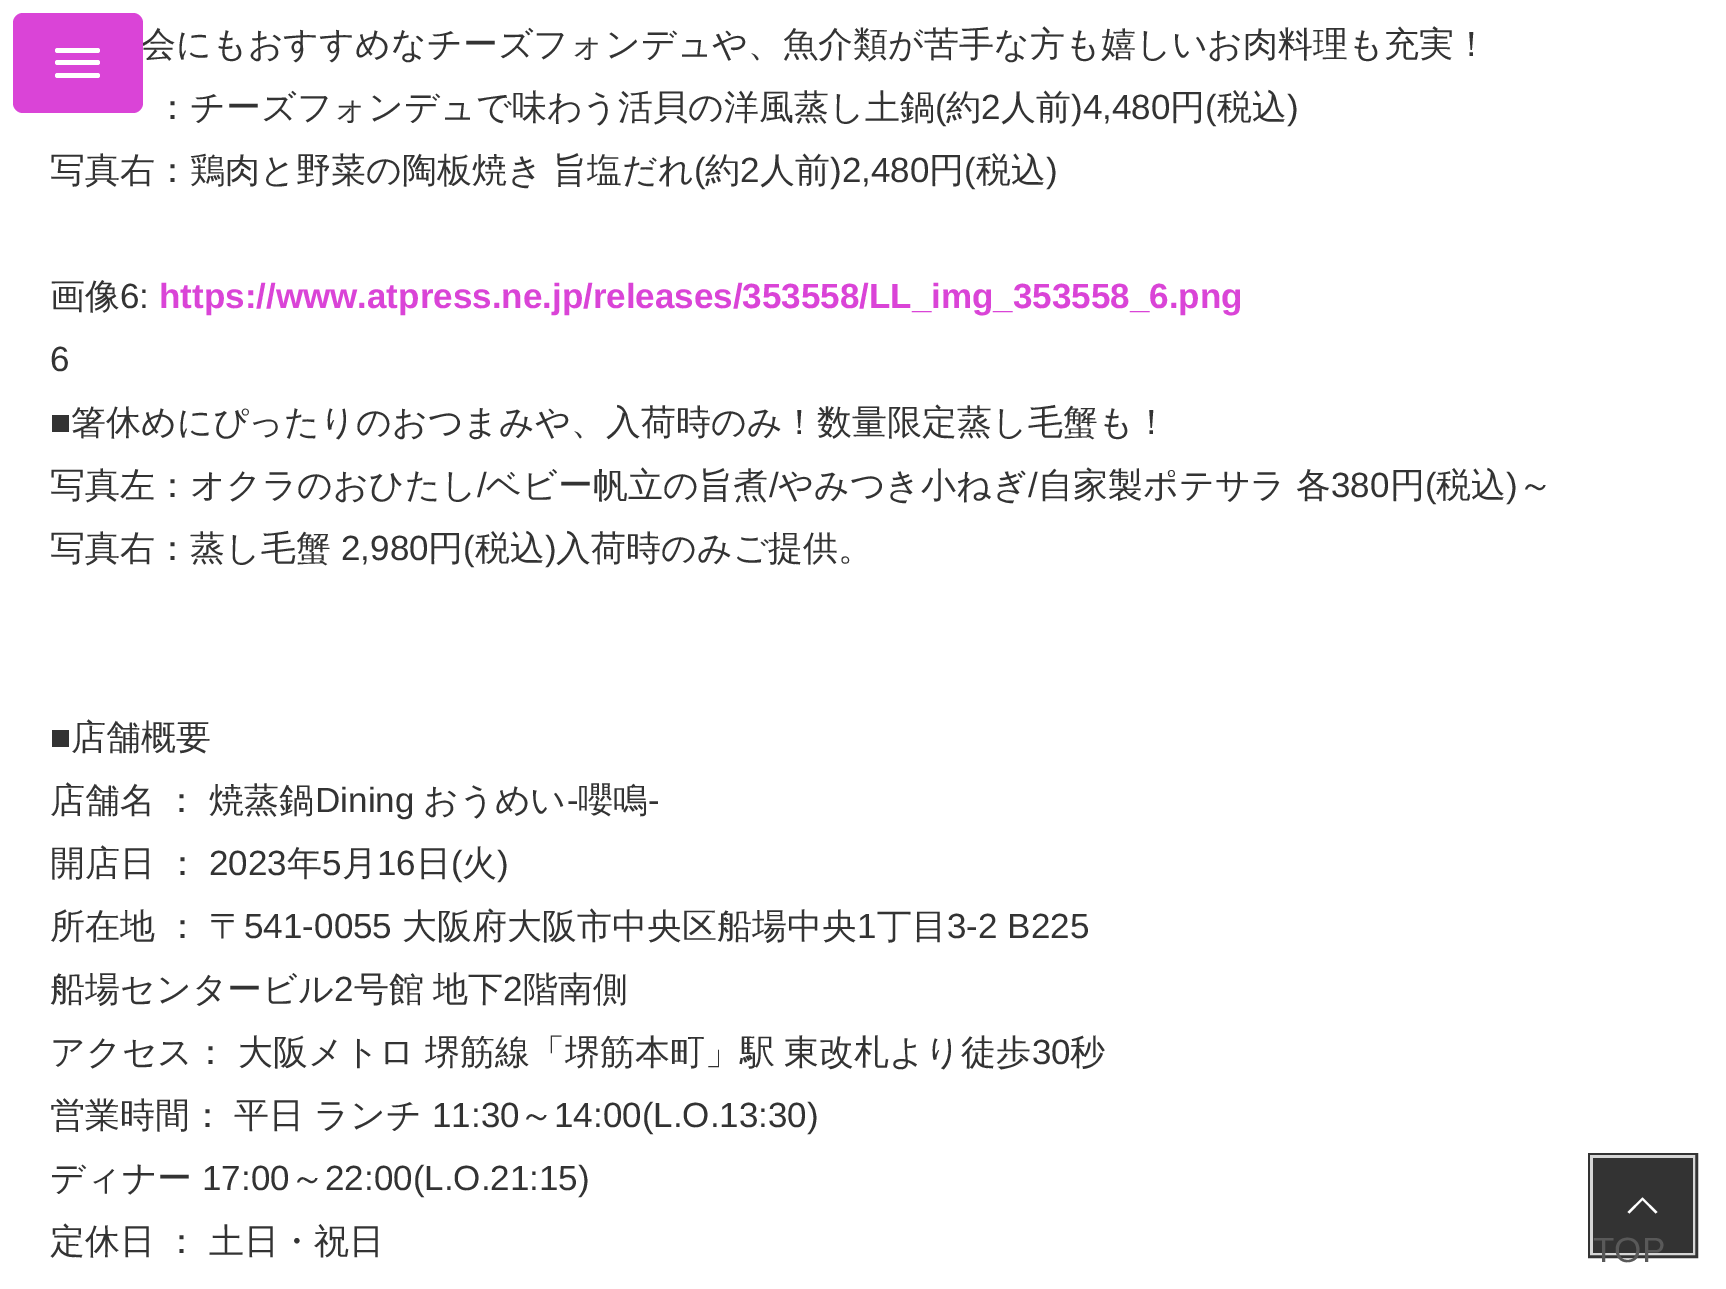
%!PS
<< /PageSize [1726 1289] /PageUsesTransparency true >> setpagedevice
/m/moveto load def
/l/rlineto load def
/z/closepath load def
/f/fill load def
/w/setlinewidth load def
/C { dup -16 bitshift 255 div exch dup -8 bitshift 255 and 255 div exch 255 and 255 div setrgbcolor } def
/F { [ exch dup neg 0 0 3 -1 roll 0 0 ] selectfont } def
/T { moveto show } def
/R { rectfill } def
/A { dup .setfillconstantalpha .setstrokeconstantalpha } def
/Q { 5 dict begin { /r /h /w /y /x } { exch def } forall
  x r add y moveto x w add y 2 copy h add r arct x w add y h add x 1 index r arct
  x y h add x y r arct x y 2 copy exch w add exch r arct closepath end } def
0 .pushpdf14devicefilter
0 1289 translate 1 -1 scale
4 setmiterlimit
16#FFFFFF C
0 0 1726 1289 R
/WenQuanYiZenHei-Medium 35 F
16#333333 C
(会にもおすすめなチーズフォンデュや、魚介類が苦手な方も嬉しいお肉料理も充実！) 141 56 T
16#DA44D7 C
13 13 130 100 10 Q f
16#FFFFFF C
55 48 45 5 2.5 Q f
55 60 45 5 2.5 Q f
55 73 45 5 2.5 Q f
16#333333 C
(：チーズフォンデュで味わう活貝の洋風蒸し土鍋) 155 119 T
/LiberationSans-Regular 35 F
(\() 935 119 T
/WenQuanYiZenHei-Medium 35 F
(約) 946 119 T
/LiberationSans-Regular 35 F
(2) 981 119 T
/WenQuanYiZenHei-Medium 35 F
(人前) 1001 119 T
/LiberationSans-Regular 35 F
(\)4,480) 1071 119 T
/WenQuanYiZenHei-Medium 35 F
(円) 1170 119 T
/LiberationSans-Regular 35 F
(\() 1205 119 T
/WenQuanYiZenHei-Medium 35 F
(税込) 1217 119 T
/LiberationSans-Regular 35 F
(\)) 1287 119 T
/WenQuanYiZenHei-Medium 35 F
50 182 m -1 0 32 (写真右：鶏肉と野菜の陶板焼き 旨塩だれ) widthshow
/LiberationSans-Regular 35 F
(\() 694 182 T
/WenQuanYiZenHei-Medium 35 F
(約) 705 182 T
/LiberationSans-Regular 35 F
(2) 740 182 T
/WenQuanYiZenHei-Medium 35 F
(人前) 760 182 T
/LiberationSans-Regular 35 F
(\)2,480) 830 182 T
/WenQuanYiZenHei-Medium 35 F
(円) 929 182 T
/LiberationSans-Regular 35 F
(\() 964 182 T
/WenQuanYiZenHei-Medium 35 F
(税込) 976 182 T
/LiberationSans-Regular 35 F
(\)) 1046 182 T
/WenQuanYiZenHei-Medium 35 F
(画像) 50 308 T
/LiberationSans-Regular 35 F
(6:) 120 308 T
/LiberationSans-Bold 35 F
16#DA44D7 C
(https://www.atpress.ne.jp/releases/353558/LL_img_353558_6.png) 159 308 T
/LiberationSans-Regular 35 F
16#333333 C
(6) 50 371 T
(■) 50 434 T
/WenQuanYiZenHei-Medium 35 F
(箸休めにぴったりのおつまみや、入荷時のみ！数量限定蒸し毛蟹も！) 71 434 T
(写真左：オクラのおひたし) 50 497 T
/LiberationSans-Regular 35 F
(/) 477 497 T
/WenQuanYiZenHei-Medium 35 F
(ベビー帆立の旨煮) 486 497 T
/LiberationSans-Regular 35 F
(/) 769 497 T
/WenQuanYiZenHei-Medium 35 F
(やみつき小ねぎ) 778 497 T
/LiberationSans-Regular 35 F
(/) 1028 497 T
/WenQuanYiZenHei-Medium 35 F
1038 497 m -1 0 32 (自家製ポテサラ 各) widthshow
/LiberationSans-Regular 35 F
(380) 1331 497 T
/WenQuanYiZenHei-Medium 35 F
(円) 1390 497 T
/LiberationSans-Regular 35 F
(\() 1425 497 T
/WenQuanYiZenHei-Medium 35 F
(税込) 1436 497 T
/LiberationSans-Regular 35 F
(\)) 1506 497 T
/WenQuanYiZenHei-Medium 35 F
(～) 1518 497 T
(写真右：蒸し毛蟹) 50 560 T
/LiberationSans-Regular 35 F
(2,980) 341 560 T
/WenQuanYiZenHei-Medium 35 F
(円) 428 560 T
/LiberationSans-Regular 35 F
(\() 463 560 T
/WenQuanYiZenHei-Medium 35 F
(税込) 475 560 T
/LiberationSans-Regular 35 F
(\)) 545 560 T
/WenQuanYiZenHei-Medium 35 F
(入荷時のみご提供。) 556 560 T
/LiberationSans-Regular 35 F
(■) 50 749 T
/WenQuanYiZenHei-Medium 35 F
(店舗概要) 71 749 T
50 812 m -1 0 32 (店舗名 ： 焼蒸鍋) widthshow
/LiberationSans-Regular 35 F
(Dining) 315 812 T
/WenQuanYiZenHei-Medium 35 F
(おうめい) 423 812 T
/LiberationSans-Regular 35 F
(-) 567 812 T
/WenQuanYiZenHei-Medium 35 F
(嚶鳴) 578 812 T
/LiberationSans-Regular 35 F
(-) 648 812 T
/WenQuanYiZenHei-Medium 35 F
(開店日 ：) 50 875 T
/LiberationSans-Regular 35 F
(2023) 209 875 T
/WenQuanYiZenHei-Medium 35 F
(年) 287 875 T
/LiberationSans-Regular 35 F
(5) 322 875 T
/WenQuanYiZenHei-Medium 35 F
(月) 342 875 T
/LiberationSans-Regular 35 F
(16) 377 875 T
/WenQuanYiZenHei-Medium 35 F
(日) 416 875 T
/LiberationSans-Regular 35 F
(\() 451 875 T
/WenQuanYiZenHei-Medium 35 F
(火) 462 875 T
/LiberationSans-Regular 35 F
(\)) 497 875 T
/WenQuanYiZenHei-Medium 35 F
(所在地) 50 938 T
(：) 165 938 T
(〒) 209 938 T
/LiberationSans-Regular 35 F
(541-0055) 244 938 T
/WenQuanYiZenHei-Medium 35 F
(大阪府大阪市中央区船場中央) 402 938 T
/LiberationSans-Regular 35 F
(1) 857 938 T
/WenQuanYiZenHei-Medium 35 F
(丁目) 877 938 T
/LiberationSans-Regular 35 F
(3-2 B225) 947 938 T
/WenQuanYiZenHei-Medium 35 F
(船場センタービル) 50 1001 T
/LiberationSans-Regular 35 F
(2) 334 1001 T
/WenQuanYiZenHei-Medium 35 F
354 1001 m -1 0 32 (号館 地下) widthshow
/LiberationSans-Regular 35 F
(2) 503 1001 T
/WenQuanYiZenHei-Medium 35 F
(階南側) 523 1001 T
50 1064 m -1 0 32 (アクセス： 大阪メトロ 堺筋線「堺筋本町」駅 東改札より徒歩) widthshow
/LiberationSans-Regular 35 F
(30) 1032 1064 T
/WenQuanYiZenHei-Medium 35 F
(秒) 1070 1064 T
50 1127 m -1 0 32 (営業時間： 平日 ランチ) widthshow
/LiberationSans-Regular 35 F
(11:30) 432 1127 T
/WenQuanYiZenHei-Medium 35 F
(～) 519 1127 T
/LiberationSans-Regular 35 F
(14:00\(L.O.13:30\)) 554 1127 T
/WenQuanYiZenHei-Medium 35 F
(ディナー) 50 1190 T
/LiberationSans-Regular 35 F
(17:00) 202 1190 T
/WenQuanYiZenHei-Medium 35 F
(～) 290 1190 T
/LiberationSans-Regular 35 F
(22:00\(L.O.21:15\)) 325 1190 T
/WenQuanYiZenHei-Medium 35 F
50 1253 m -1 0 32 (定休日 ： 土日・祝日) widthshow
5 w
1590.5 1155.5 105 100 rectstroke
0.8 A
16#FFFFFF C
3 w
1591.5 1156.5 102 97 rectstroke
1 A
16#333333 C
1593 1158 100 95 R
16#FFFFFF C
1657.5 1212 m -2 1.5 l -13 -13.5 l -13 13.5 l -2 -1.5 l 15 -14.5 l z f
/LiberationSans-Regular 35 F
16#595959 C
(TOP) 1593 1262 T
.poppdf14devicefilter showpage
